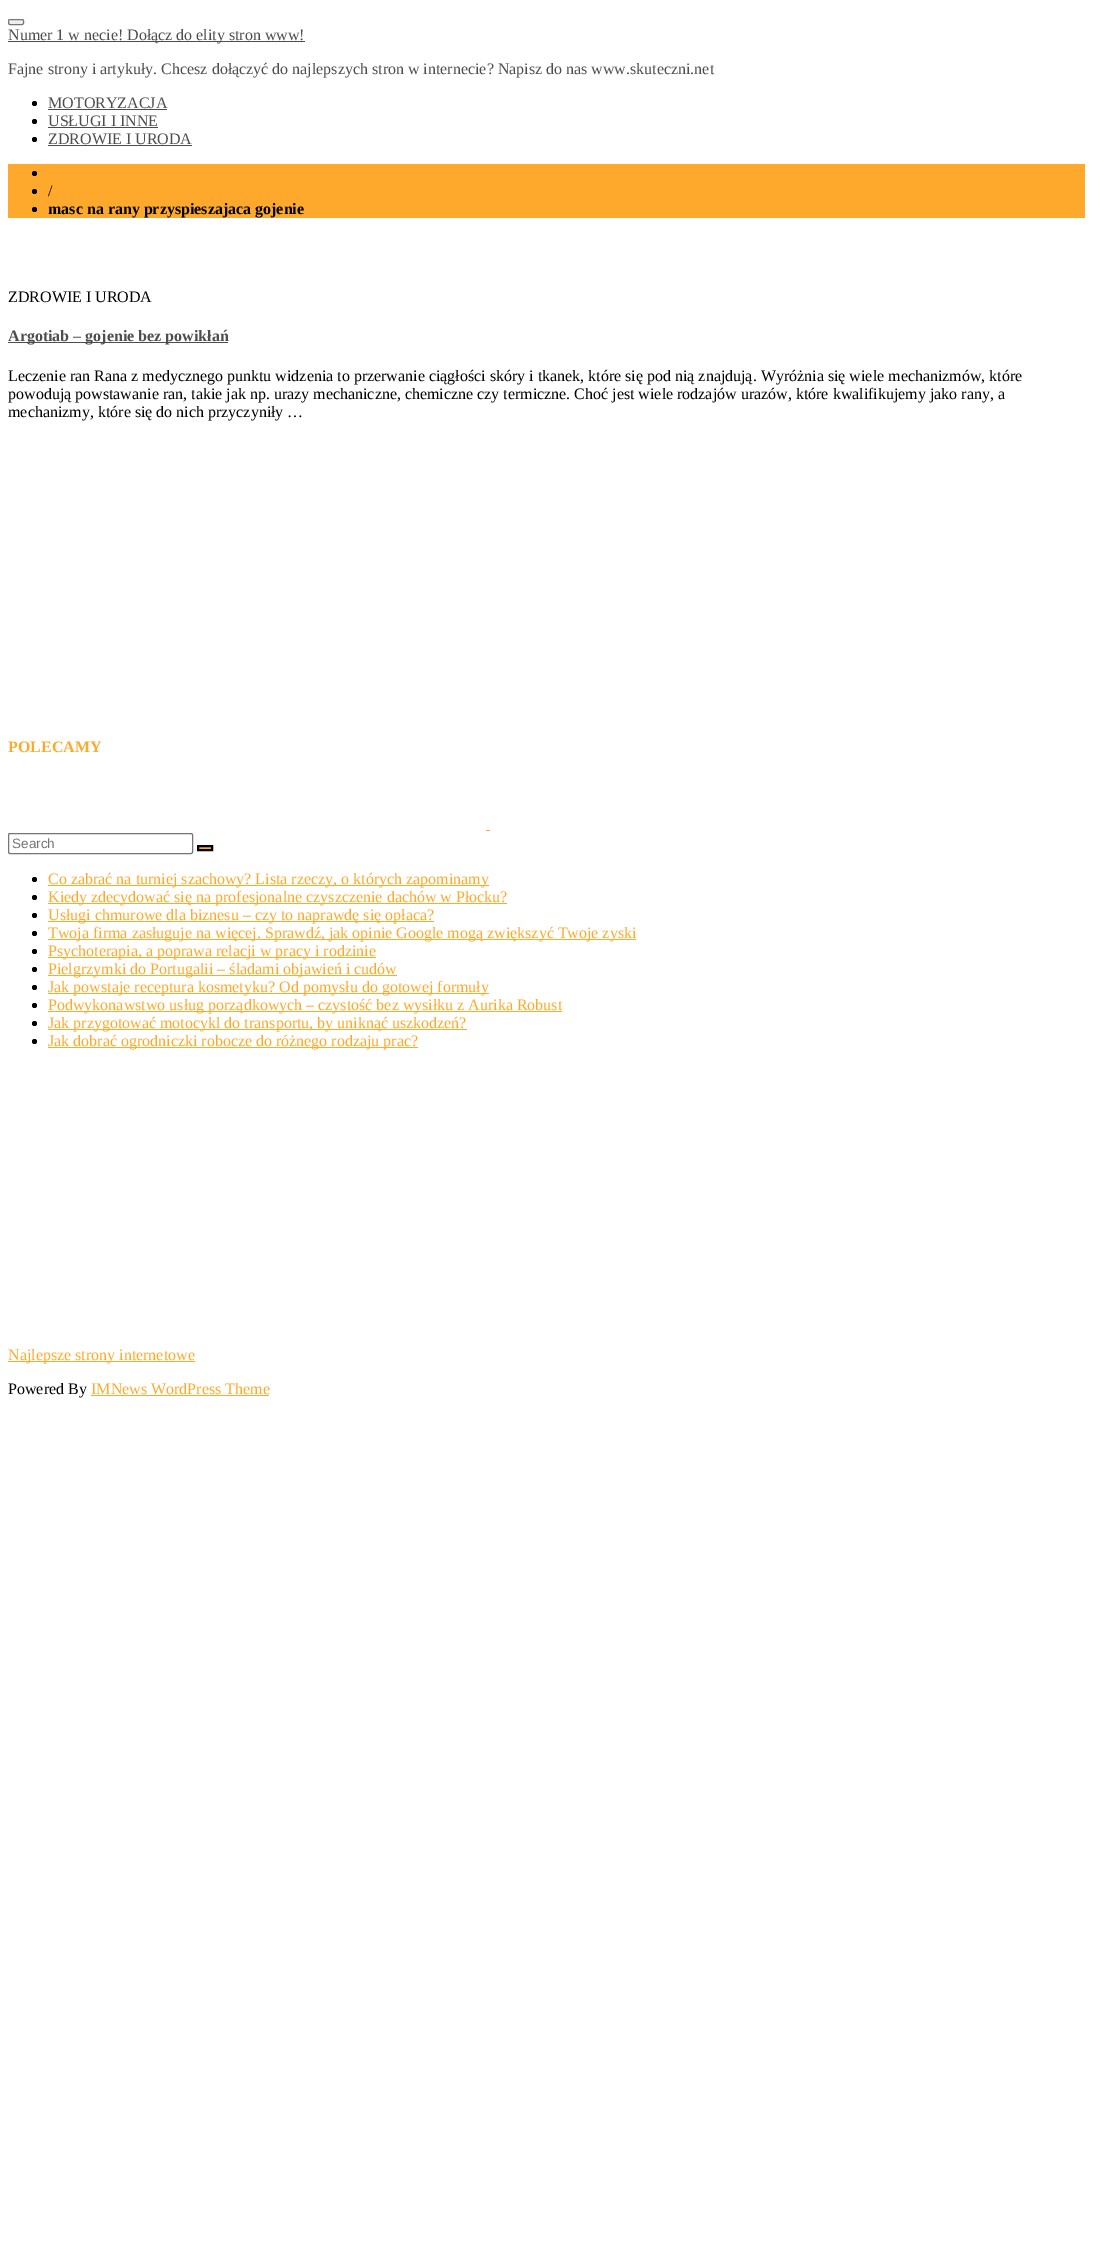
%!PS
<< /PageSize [1093 2250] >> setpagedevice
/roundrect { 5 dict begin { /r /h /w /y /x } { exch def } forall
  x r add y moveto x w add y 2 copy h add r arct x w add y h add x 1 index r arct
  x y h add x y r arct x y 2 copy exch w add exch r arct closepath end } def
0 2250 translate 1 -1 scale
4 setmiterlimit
1 setgray
0 0 1093 2250 rectfill
0.937 setgray
8.5 19.5 15 5 1.5 roundrect gsave fill grestore
0.463 setgray
stroke
0.302 setgray
8 41 297 1 rectfill
/LiberationSerif-Regular [16 0 0 -16 0 0] selectfont
8 40 moveto (Numer 1 w necie! Dołącz do elity stron www!) show
8 74 moveto (Fajne strony i artykuły. Chcesz dołączyć do najlepszych stron w internecie? Napisz do nas www.skuteczni.net) show
0 setgray
newpath 34.5 103.5 2.5 0 360 arc closepath fill
0.302 setgray
48 108 moveto (MOTORYZACJA) show
48 109 119 1 rectfill
0 setgray
newpath 34.5 121.5 2.5 0 360 arc closepath fill
0.302 setgray
48 126 moveto (USŁUGI I INNE) show
48 127 110 1 rectfill
0 setgray
newpath 34.5 139.5 2.5 0 360 arc closepath fill
0.302 setgray
48 144 moveto (ZDROWIE I URODA) show
48 145 144 1 rectfill
1 0.663 0.173 setrgbcolor
8 164 1077 54 rectfill
0 setgray
newpath 34.5 173.5 2.5 0 360 arc closepath fill
newpath 34.5 191.5 2.5 0 360 arc closepath fill
48 196 moveto (/) show
newpath 34.5 209.5 2.5 0 360 arc closepath fill
/LiberationSerif-Bold [16 0 0 -16 0 0] selectfont
48 214 moveto (masc na rany przyspieszajaca gojenie) show
/LiberationSerif-Regular [16 0 0 -16 0 0] selectfont
8 302 moveto (ZDROWIE I URODA) show
0.302 setgray
8 342 220 1 rectfill
/LiberationSerif-Bold [16 0 0 -16 0 0] selectfont
8 341 moveto (Argotiab – gojenie bez powikłań) show
/LiberationSerif-Regular [16 0 0 -16 0 0] selectfont
0 setgray
8 381 moveto (Leczenie ran Rana z medycznego punktu widzenia to przerwanie ciągłości skóry i tkanek, które się pod nią znajdują. Wyróżnia się wiele mechanizmów, które) show
8 399 moveto (powodują powstawanie ran, takie jak np. urazy mechaniczne, chemiczne czy termiczne. Choć jest wiele rodzajów urazów, które kwalifikujemy jako rany, a) show
8 417 moveto (mechanizmy, które się do nich przyczyniły …) show
/LiberationSerif-Bold [16 0 0 -16 0 0] selectfont
1 0.663 0.173 setrgbcolor
8 752 moveto (POLECAMY) show
486 830 4 1 rectfill
0.463 setgray
8.5 833.5 184 20 1.5 roundrect stroke
/LiberationSans-Regular [13.5 0 0 -13.5 0 0] selectfont
0.459 setgray
12 848 moveto (Search) show
1 0.663 0.173 setrgbcolor
newpath 198 846 moveto 212 846 lineto 212 850 lineto 198 850 lineto closepath gsave fill grestore
0 setgray
2 setlinewidth
stroke
newpath 34.5 879.5 2.5 0 360 arc closepath fill
1 0.663 0.173 setrgbcolor
48 885 441 1 rectfill
/LiberationSerif-Regular [16 0 0 -16 0 0] selectfont
48 884 moveto (Co zabrać na turniej szachowy? Lista rzeczy, o których zapominamy) show
0 setgray
newpath 34.5 897.5 2.5 0 360 arc closepath fill
1 0.663 0.173 setrgbcolor
48 903 459 1 rectfill
48 902 moveto (Kiedy zdecydować się na profesjonalne czyszczenie dachów w Płocku?) show
0 setgray
newpath 34.5 915.5 2.5 0 360 arc closepath fill
1 0.663 0.173 setrgbcolor
48 921 386 1 rectfill
48 920 moveto (Usługi chmurowe dla biznesu – czy to naprawdę się opłaca?) show
0 setgray
newpath 34.5 933.5 2.5 0 360 arc closepath fill
1 0.663 0.173 setrgbcolor
48 939 588 1 rectfill
48 938 moveto (Twoja firma zasługuje na więcej. Sprawdź, jak opinie Google mogą zwiększyć Twoje zyski) show
0 setgray
newpath 34.5 951.5 2.5 0 360 arc closepath fill
1 0.663 0.173 setrgbcolor
48 957 328 1 rectfill
48 956 moveto (Psychoterapia, a poprawa relacji w pracy i rodzinie) show
0 setgray
newpath 34.5 969.5 2.5 0 360 arc closepath fill
1 0.663 0.173 setrgbcolor
48 975 349 1 rectfill
48 974 moveto (Pielgrzymki do Portugalii – śladami objawień i cudów) show
0 setgray
newpath 34.5 987.5 2.5 0 360 arc closepath fill
1 0.663 0.173 setrgbcolor
48 993 441 1 rectfill
48 992 moveto (Jak powstaje receptura kosmetyku? Od pomysłu do gotowej formuły) show
0 setgray
newpath 34.5 1005.5 2.5 0 360 arc closepath fill
1 0.663 0.173 setrgbcolor
48 1011 514 1 rectfill
48 1010 moveto (Podwykonawstwo usług porządkowych – czystość bez wysiłku z Aurika Robust) show
0 setgray
newpath 34.5 1023.5 2.5 0 360 arc closepath fill
1 0.663 0.173 setrgbcolor
48 1029 419 1 rectfill
48 1028 moveto (Jak przygotować motocykl do transportu, by uniknąć uszkodzeń?) show
0 setgray
newpath 34.5 1041.5 2.5 0 360 arc closepath fill
1 0.663 0.173 setrgbcolor
48 1047 370 1 rectfill
48 1046 moveto (Jak dobrać ogrodniczki robocze do różnego rodzaju prac?) show
8 1361 187 1 rectfill
8 1360 moveto (Najlepsze strony internetowe) show
0 setgray
8 1394 moveto (Powered By) show
1 0.663 0.173 setrgbcolor
91 1394 moveto (IMNews WordPress Theme) show
91 1395 178 1 rectfill
showpage
